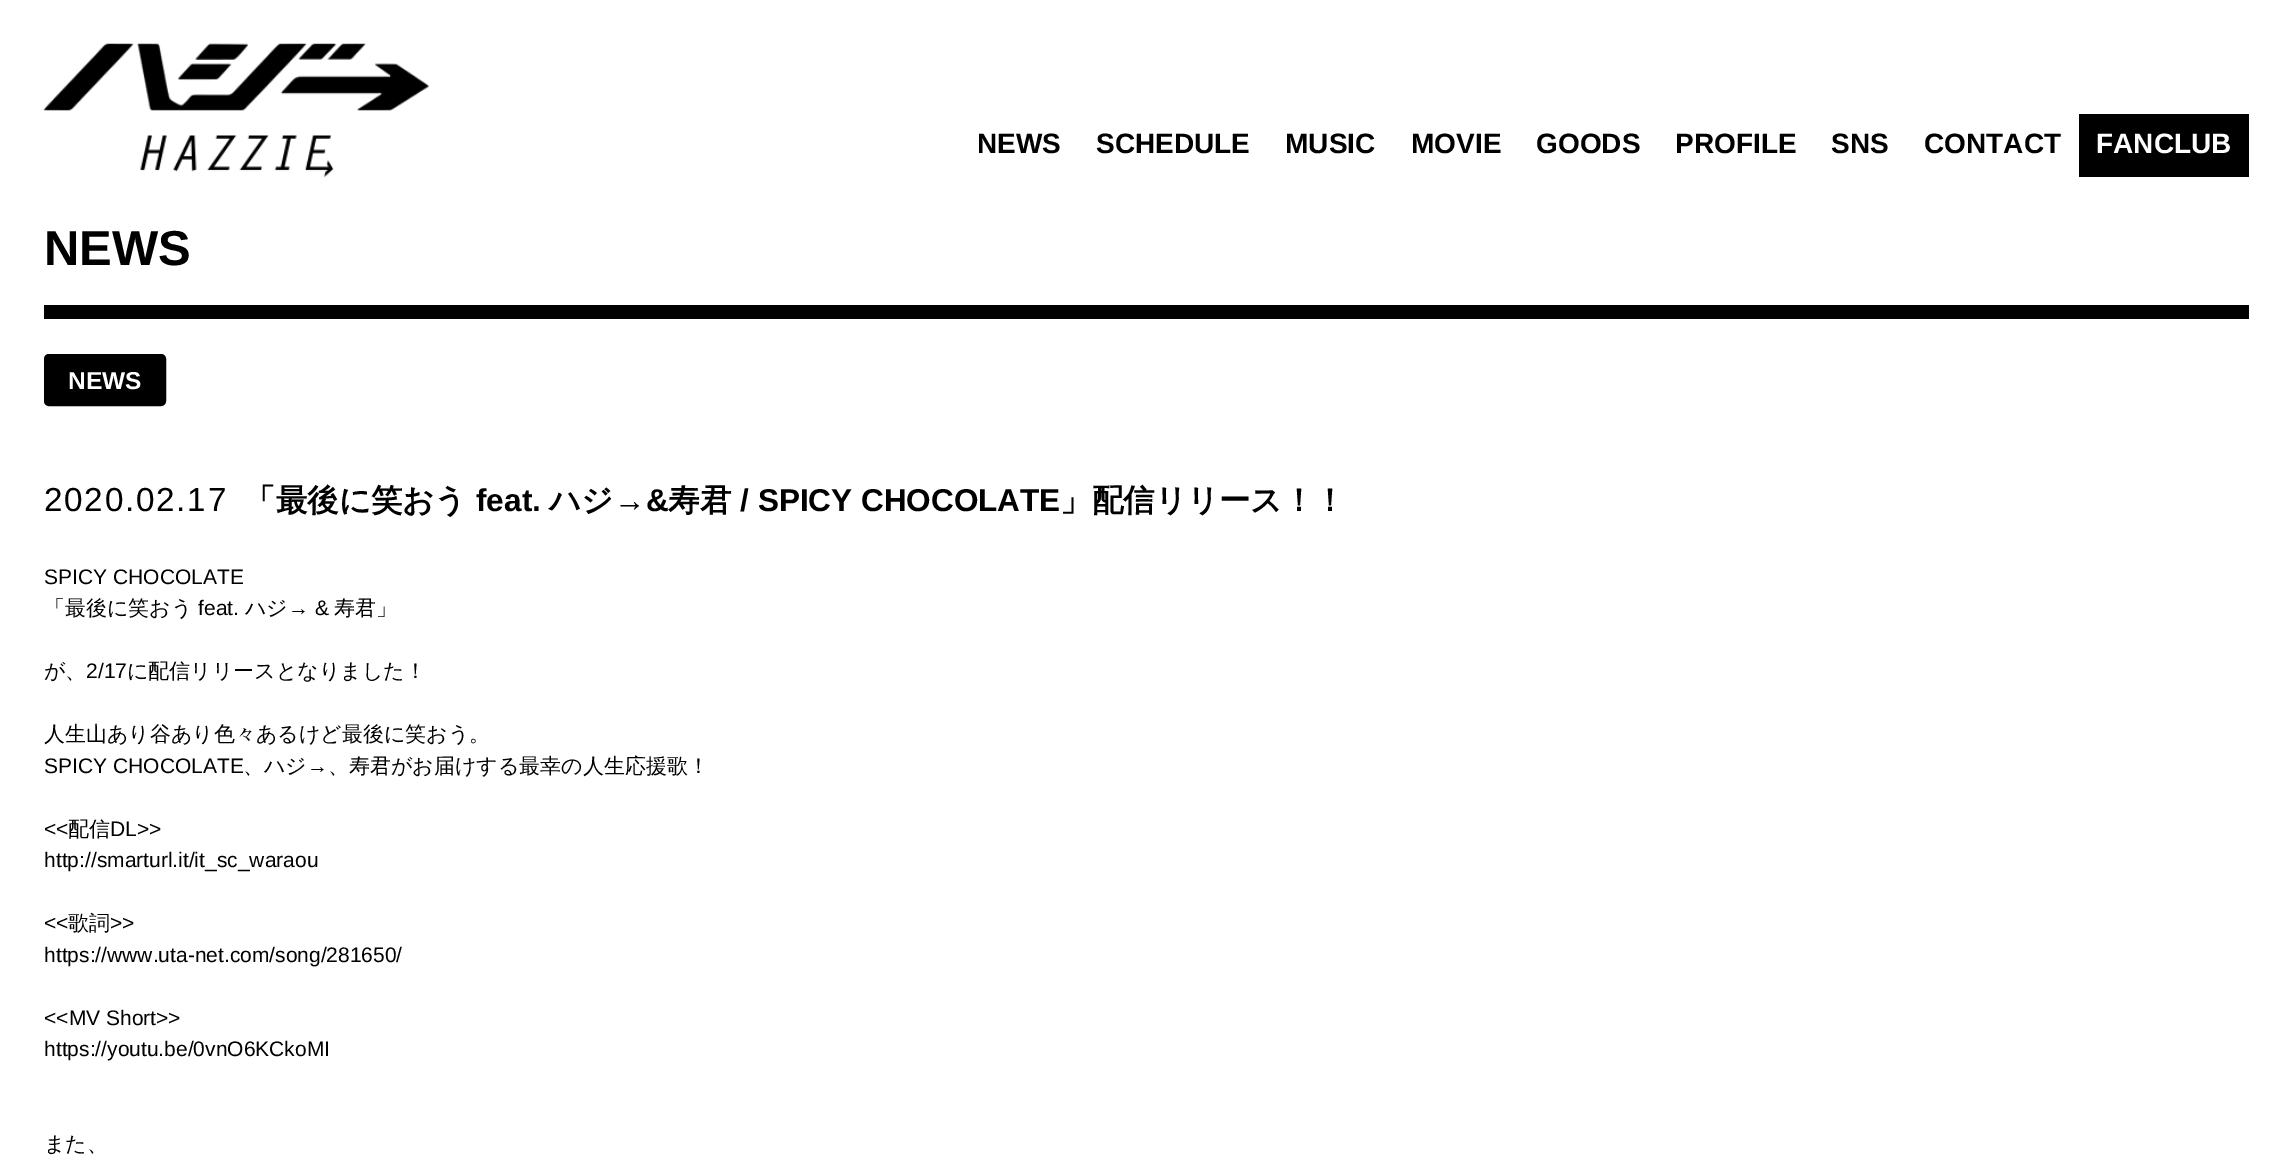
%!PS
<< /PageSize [2291 1170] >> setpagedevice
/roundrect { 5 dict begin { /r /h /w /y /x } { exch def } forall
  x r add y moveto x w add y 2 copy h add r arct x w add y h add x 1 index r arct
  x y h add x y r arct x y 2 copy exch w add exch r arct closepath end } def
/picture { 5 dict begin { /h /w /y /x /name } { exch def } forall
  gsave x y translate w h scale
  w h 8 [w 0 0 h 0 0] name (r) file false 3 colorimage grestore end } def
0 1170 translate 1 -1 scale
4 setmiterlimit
1 setgray
0 0 2291 1170 rectfill
(img1.rgb) 43 43 386 134 picture
/LiberationSans-Bold [28 0 0 -28 0 0] selectfont
0 setgray
977 153 moveto (NEWS) show
1096 153 moveto (SCHEDULE) show
1285 153 moveto (MUSIC) show
1411 153 moveto (MOVIE) show
1536 153 moveto (GOODS) show
1675 153 moveto (PROFILE) show
1831 153 moveto (SNS) show
1924 153 moveto (CONTACT) show
2079 114 170 63 rectfill
1 setgray
2096 153 moveto (FANCLUB) show
0 setgray
44 305 2205 14 rectfill
/LiberationSans-Bold [49 0 0 -49 0 0] selectfont
44 265 moveto (NEWS) show
46.5 356.5 117 47 2.5 roundrect gsave fill grestore
5 setlinewidth
stroke
/LiberationSans-Bold [24.5 0 0 -24.5 0 0] selectfont
1 setgray
68 389 moveto (NEWS) show
/LiberationSans-Regular [33.25 0 0 -33.25 0 0] selectfont
0 setgray
44 511 moveto 1.75 0 (2020.02.17) ashow
/WenQuanYiZenHei-Bold [31.5 0 0 -31.5 0 0] selectfont
244 511 moveto (「最後に笑おう) show
/LiberationSans-Bold [31.5 0 0 -31.5 0 0] selectfont
476 511 moveto (feat.) show
/WenQuanYiZenHei-Bold [31.5 0 0 -31.5 0 0] selectfont
549 511 moveto (ハジ) show
/LiberationSans-Bold [31.5 0 0 -31.5 0 0] selectfont
614 511 moveto (→&) show
/WenQuanYiZenHei-Bold [31.5 0 0 -31.5 0 0] selectfont
668 511 moveto (寿君) show
/LiberationSans-Bold [31.5 0 0 -31.5 0 0] selectfont
740 511 moveto (/ SPICY CHOCOLATE) show
/WenQuanYiZenHei-Bold [31.5 0 0 -31.5 0 0] selectfont
1060 511 moveto (」配信リリース！！) show
/LiberationSans-Regular [21 0 0 -21 0 0] selectfont
44 584 moveto (SPICY CHOCOLATE) show
/WenQuanYiZenHei-Medium [21 0 0 -21 0 0] selectfont
44 615 moveto (「最後に笑おう) show
/LiberationSans-Regular [21 0 0 -21 0 0] selectfont
198 615 moveto (feat.) show
/WenQuanYiZenHei-Medium [21 0 0 -21 0 0] selectfont
245 615 moveto (ハジ) show
/LiberationSans-Regular [21 0 0 -21 0 0] selectfont
288 615 moveto (→ &) show
/WenQuanYiZenHei-Medium [21 0 0 -21 0 0] selectfont
334 615 moveto (寿君」) show
44 678 moveto (が、) show
/LiberationSans-Regular [21 0 0 -21 0 0] selectfont
86 678 moveto (2/17) show
/WenQuanYiZenHei-Medium [21 0 0 -21 0 0] selectfont
127 678 moveto (に配信リリースとなりました！) show
44 741 moveto (人生山あり谷あり色々あるけど最後に笑おう。) show
/LiberationSans-Regular [21 0 0 -21 0 0] selectfont
44 773 moveto (SPICY CHOCOLATE) show
/WenQuanYiZenHei-Medium [21 0 0 -21 0 0] selectfont
243 773 moveto (、ハジ) show
/LiberationSans-Regular [21 0 0 -21 0 0] selectfont
307 773 moveto (→) show
/WenQuanYiZenHei-Medium [21 0 0 -21 0 0] selectfont
328 773 moveto (、寿君がお届けする最幸の人生応援歌！) show
/LiberationSans-Regular [21 0 0 -21 0 0] selectfont
44 836 moveto (<<) show
/WenQuanYiZenHei-Medium [21 0 0 -21 0 0] selectfont
68 836 moveto (配信) show
/LiberationSans-Regular [21 0 0 -21 0 0] selectfont
110 836 moveto (DL>>) show
44 867 moveto (http://smarturl.it/it_sc_waraou) show
44 930 moveto (<<) show
/WenQuanYiZenHei-Medium [21 0 0 -21 0 0] selectfont
68 930 moveto (歌詞) show
/LiberationSans-Regular [21 0 0 -21 0 0] selectfont
110 930 moveto (>>) show
44 962 moveto (https://www.uta-net.com/song/281650/) show
44 1025 moveto (<<MV Short>>) show
44 1056 moveto (https://youtu.be/0vnO6KCkoMI) show
/WenQuanYiZenHei-Medium [21 0 0 -21 0 0] selectfont
44 1151 moveto (また、) show
showpage
